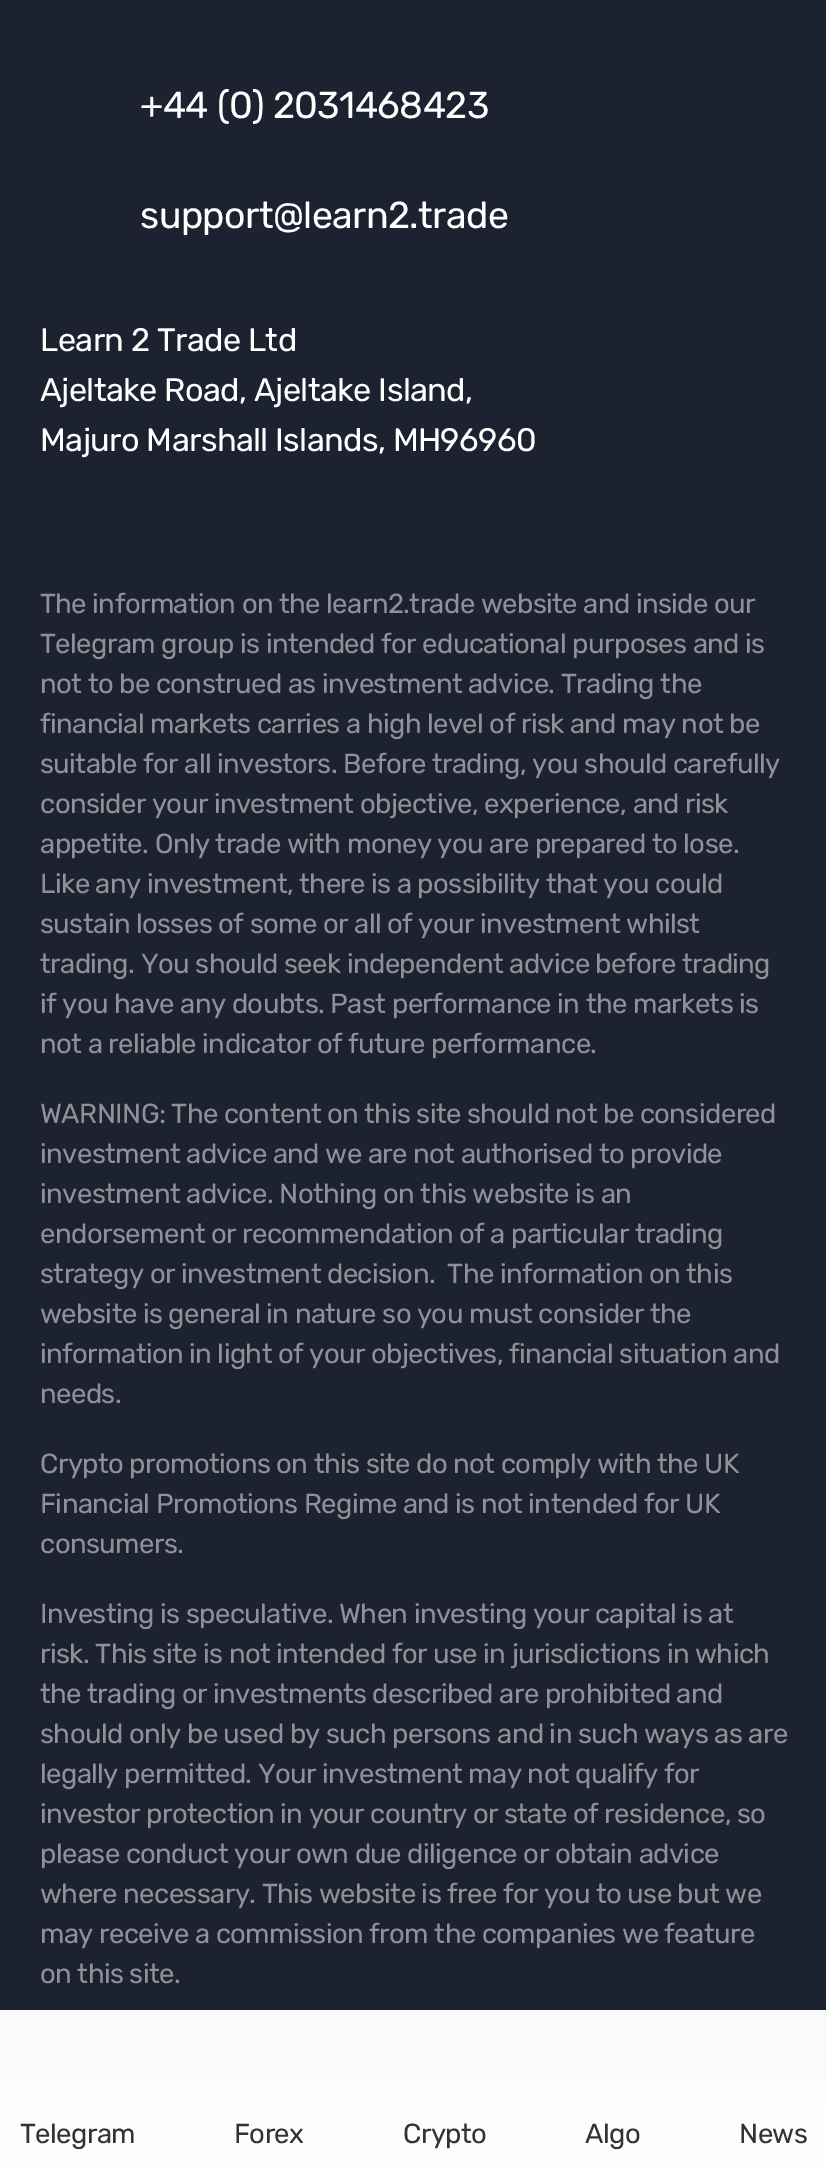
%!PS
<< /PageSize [826 2174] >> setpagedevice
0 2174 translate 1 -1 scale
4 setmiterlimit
0.114 0.133 0.188 setrgbcolor
0 0 826 2174 rectfill
/Rubik-Regular [37.5 0 0 -37.5 0 0] selectfont
1 setgray
140 118 moveto -0.6 0 (+44 \(0\) 2031468423) ashow
140 228 moveto -0.6 0 (support@learn2.trade) ashow
/Rubik-Regular [32.5 0 0 -32.5 0 0] selectfont
40 351 moveto -0.6 0 (Learn 2 Trade Ltd) ashow
40 401 moveto -0.6 0 (Ajeltake Road, Ajeltake Island,) ashow
40 451 moveto -0.6 0 (Majuro Marshall Islands, MH96960) ashow
/Rubik-Regular [27.5 0 0 -27.5 0 0] selectfont
0.557 0.569 0.596 setrgbcolor
40 613 moveto -0.6 0 (The information on the learn2.trade website and inside our) ashow
40 653 moveto -0.6 0 (Telegram group is intended for educational purposes and is) ashow
40 693 moveto -0.6 0 (not to be construed as investment advice. Trading the) ashow
40 733 moveto -0.6 0 (financial markets carries a high level of risk and may not be) ashow
40 773 moveto -0.6 0 (suitable for all investors. Before trading, you should carefully) ashow
40 813 moveto -0.6 0 (consider your investment objective, experience, and risk) ashow
40 853 moveto -0.6 0 (appetite. Only trade with money you are prepared to lose.) ashow
40 893 moveto -0.6 0 (Like any investment, there is a possibility that you could) ashow
40 933 moveto -0.6 0 (sustain losses of some or all of your investment whilst) ashow
40 973 moveto -0.6 0 (trading. You should seek independent advice before trading) ashow
40 1013 moveto -0.6 0 (if you have any doubts. Past performance in the markets is) ashow
40 1053 moveto -0.6 0 (not a reliable indicator of future performance.) ashow
40 1123 moveto -0.6 0 (WARNING: The content on this site should not be considered) ashow
40 1163 moveto -0.6 0 (investment advice and we are not authorised to provide) ashow
40 1203 moveto -0.6 0 (investment advice. Nothing on this website is an) ashow
40 1243 moveto -0.6 0 (endorsement or recommendation of a particular trading) ashow
40 1283 moveto -0.6 0 (strategy or investment decision.  The information on this) ashow
40 1323 moveto -0.6 0 (website is general in nature so you must consider the) ashow
40 1363 moveto -0.6 0 (information in light of your objectives, financial situation and) ashow
40 1403 moveto -0.6 0 (needs.) ashow
40 1473 moveto -0.6 0 (Crypto promotions on this site do not comply with the UK) ashow
40 1513 moveto -0.6 0 (Financial Promotions Regime and is not intended for UK) ashow
40 1553 moveto -0.6 0 (consumers.) ashow
40 1623 moveto -0.6 0 (Investing is speculative. When investing your capital is at) ashow
40 1663 moveto -0.6 0 (risk. This site is not intended for use in jurisdictions in which) ashow
40 1703 moveto -0.6 0 (the trading or investments described are prohibited and) ashow
40 1743 moveto -0.6 0 (should only be used by such persons and in such ways as are) ashow
40 1783 moveto -0.6 0 (legally permitted. Your investment may not qualify for) ashow
40 1823 moveto -0.6 0 (investor protection in your country or state of residence, so) ashow
40 1863 moveto -0.6 0 (please conduct your own due diligence or obtain advice) ashow
40 1903 moveto -0.6 0 (where necessary. This website is free for you to use but we) ashow
40 1943 moveto -0.6 0 (may receive a commission from the companies we feature) ashow
40 1983 moveto -0.6 0 (on this site.) ashow
gsave newpath 0 2010 moveto 826 2010 lineto 826 2174 lineto 0 2174 lineto closepath clip newpath
<< /ShadingType 2 /ColorSpace /DeviceRGB /Coords [414 2010 414 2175] /Extend [true true] /Function << /FunctionType 2 /Domain [0 1] /C0 [0.98 0.98 0.98] /C1 [1 1 1] /N 1 >> >> shfill grestore
0.2 setgray
20 2143 moveto -0.6 0 (Telegram) ashow
234 2143 moveto -0.6 0 (Forex) ashow
403 2143 moveto -0.6 0 (Crypto) ashow
585 2143 moveto -0.6 0 (Algo) ashow
739 2143 moveto -0.6 0 (News) ashow
showpage
